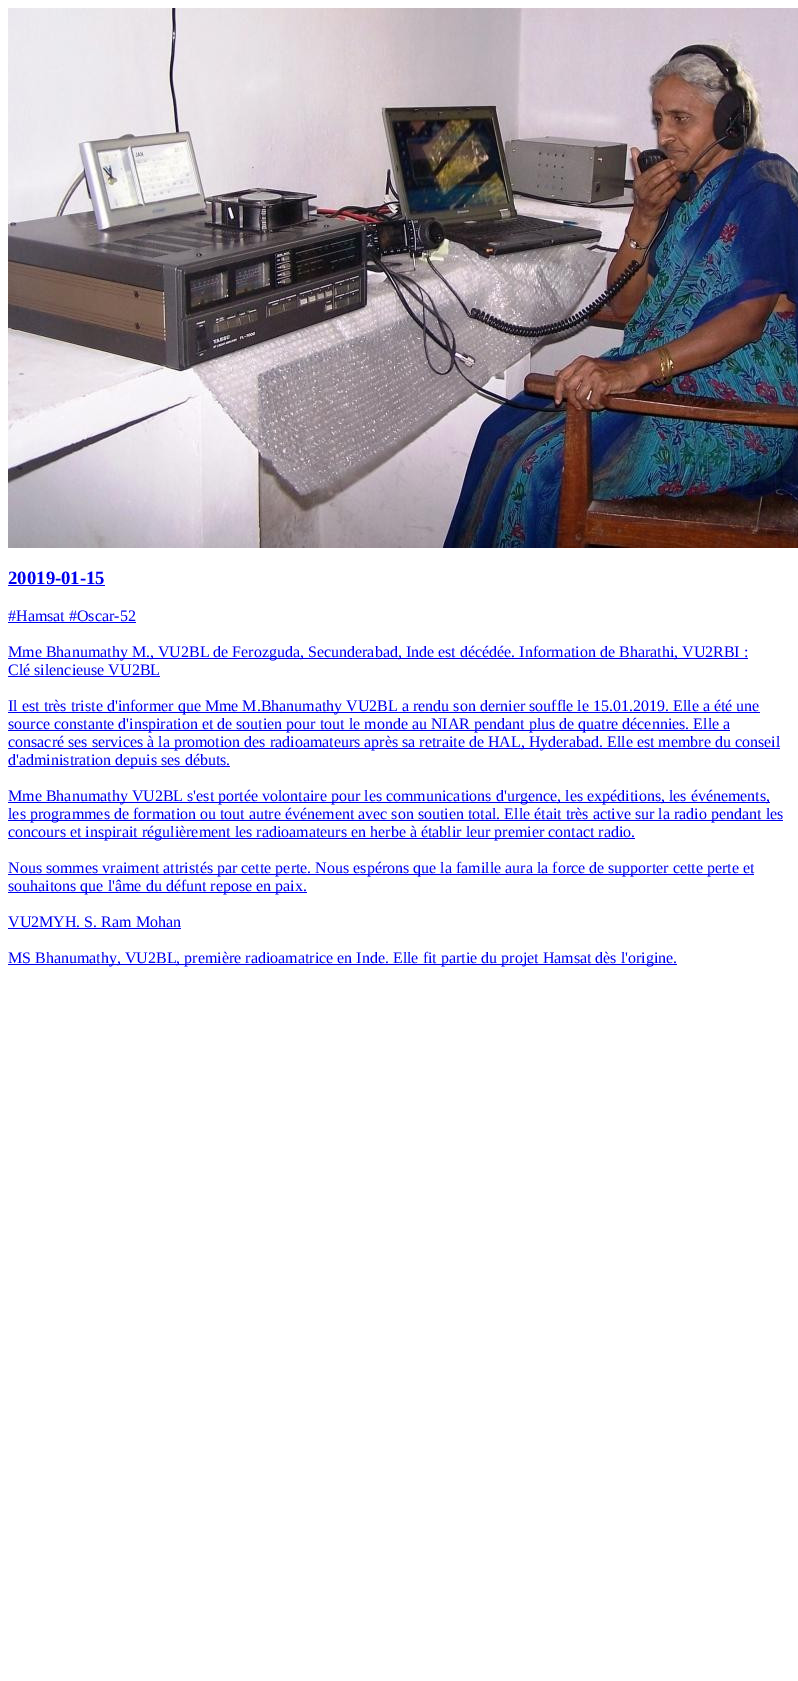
%!PS
<< /PageSize [798 1681] >> setpagedevice
/picture { 5 dict begin { /h /w /y /x /name } { exch def } forall
  gsave x y translate w h scale
  w h 8 [w 0 0 h 0 0] name (r) file false 3 colorimage grestore end } def
0 1681 translate 1 -1 scale
4 setmiterlimit
1 setgray
0 0 798 1681 rectfill
(img1.rgb) 8 8 790 540 picture
/LiberationSerif-Bold [18.75 0 0 -18.75 0 0] selectfont
0 0 0.933 setrgbcolor
8 584 moveto (20019-01-15) show
8 585 97 1 rectfill
/LiberationSerif-Regular [16 0 0 -16 0 0] selectfont
8 621 moveto (#Hamsat #Oscar-52) show
8 622 128 1 rectfill
8 658 740 1 rectfill
8 657 moveto (Mme Bhanumathy M., VU2BL de Ferozguda, Secunderabad, Inde est décédée. Information de Bharathi, VU2RBI :) show
8 675 moveto (Clé silencieuse VU2BL) show
8 676 152 1 rectfill
8 712 752 1 rectfill
8 711 moveto (Il est très triste d'informer que Mme M.Bhanumathy VU2BL a rendu son dernier souffle le 15.01.2019. Elle a été une) show
8 730 722 1 rectfill
8 729 moveto (source constante d'inspiration et de soutien pour tout le monde au NIAR pendant plus de quatre décennies. Elle a) show
8 748 772 1 rectfill
8 747 moveto (consacré ses services à la promotion des radioamateurs après sa retraite de HAL, Hyderabad. Elle est membre du conseil) show
8 766 222 1 rectfill
8 765 moveto (d'administration depuis ses débuts.) show
8 802 762 1 rectfill
8 801 moveto (Mme Bhanumathy VU2BL s'est portée volontaire pour les communications d'urgence, les expéditions, les événements,) show
8 820 775 1 rectfill
8 819 moveto (les programmes de formation ou tout autre événement avec son soutien total. Elle était très active sur la radio pendant les) show
8 838 627 1 rectfill
8 837 moveto (concours et inspirait régulièrement les radioamateurs en herbe à établir leur premier contact radio.) show
8 874 746 1 rectfill
8 873 moveto (Nous sommes vraiment attristés par cette perte. Nous espérons que la famille aura la force de supporter cette perte et) show
8 892 299 1 rectfill
8 891 moveto (souhaitons que l'âme du défunt repose en paix.) show
8 927 moveto (VU2MYH. S. Ram Mohan) show
8 928 173 1 rectfill
8 964 669 1 rectfill
8 963 moveto (MS Bhanumathy, VU2BL, première radioamatrice en Inde. Elle fit partie du projet Hamsat dès l'origine.) show
showpage
